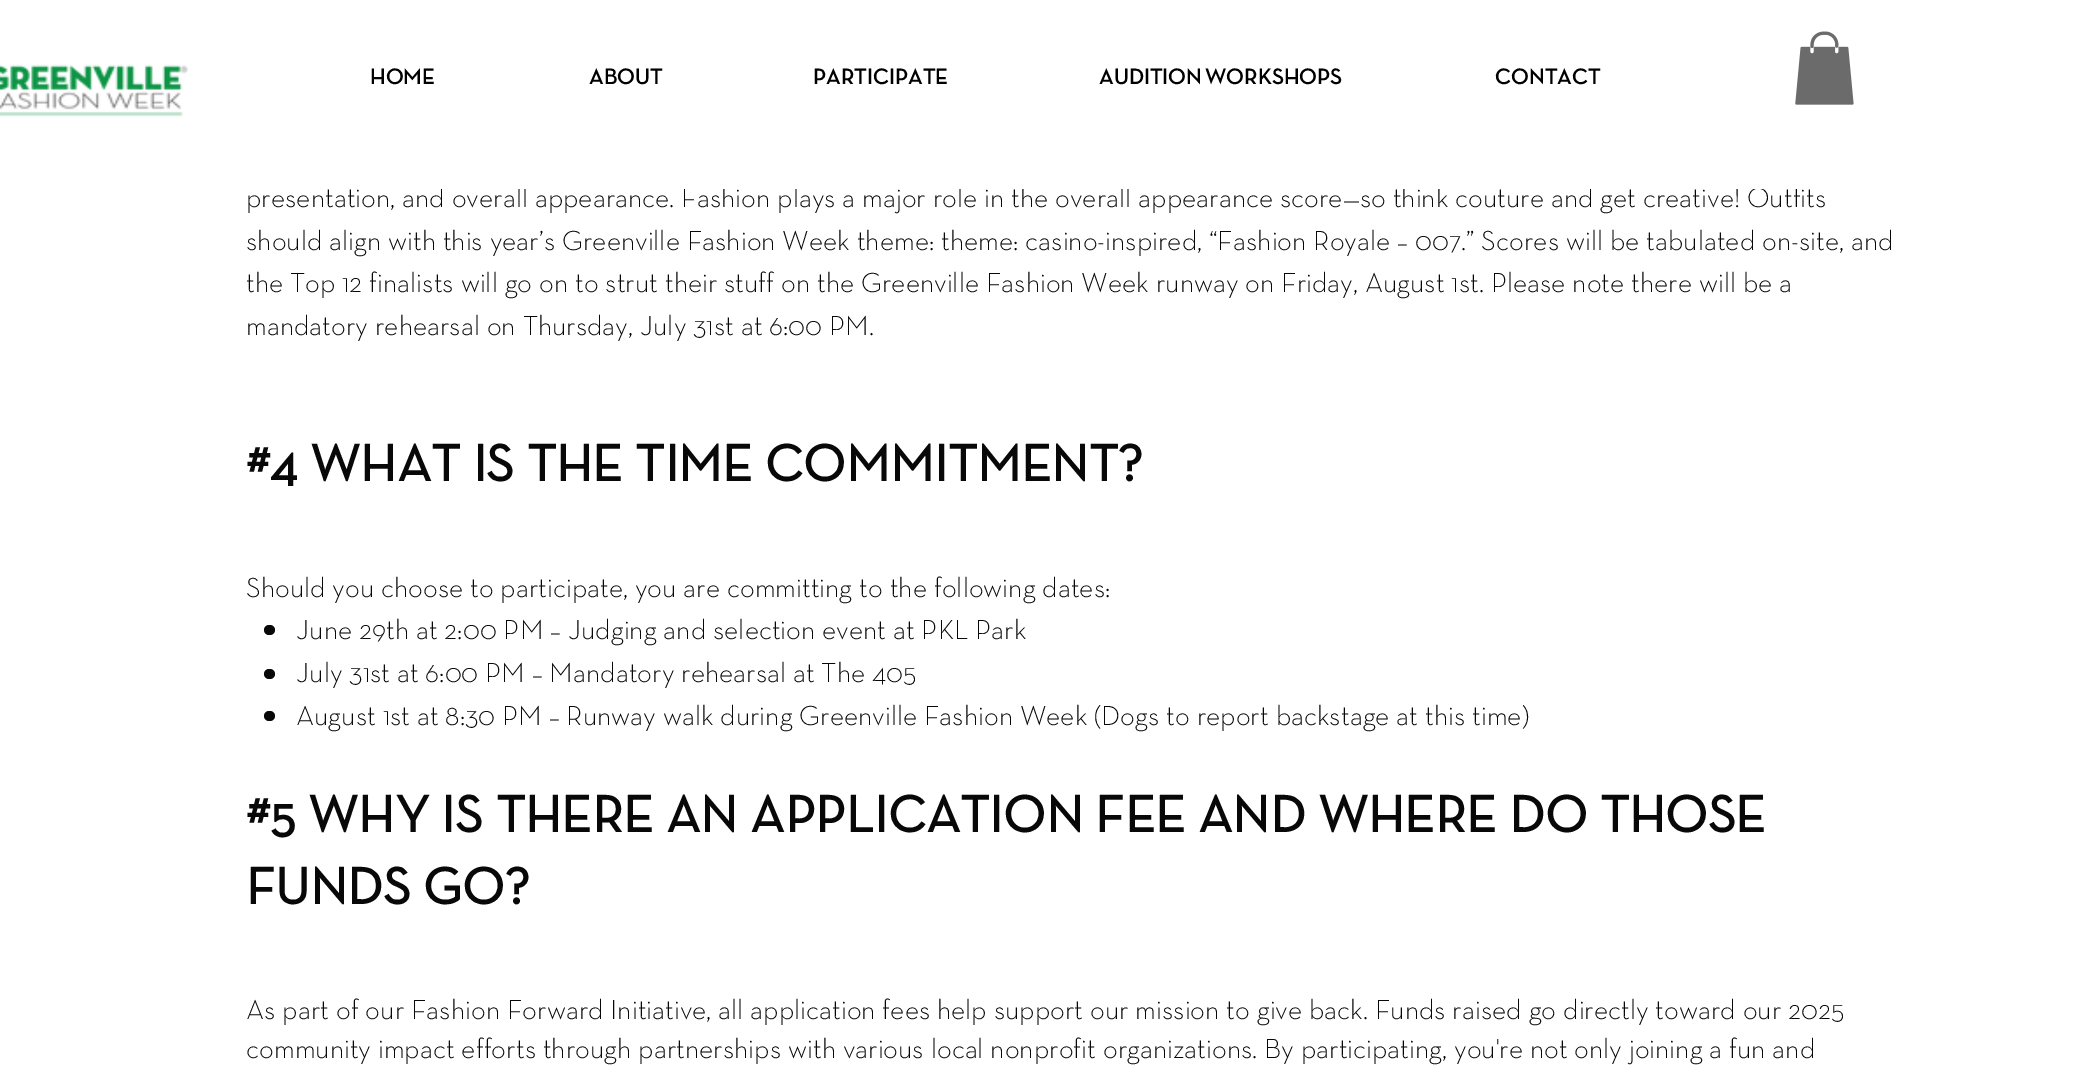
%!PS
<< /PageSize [2097 1077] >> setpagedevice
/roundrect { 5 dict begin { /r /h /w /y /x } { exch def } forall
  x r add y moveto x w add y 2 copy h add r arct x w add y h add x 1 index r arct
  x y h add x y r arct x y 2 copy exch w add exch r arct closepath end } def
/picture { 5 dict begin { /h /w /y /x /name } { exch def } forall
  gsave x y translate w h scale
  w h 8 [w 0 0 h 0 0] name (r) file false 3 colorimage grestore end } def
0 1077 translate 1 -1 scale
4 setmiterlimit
1 setgray
0 0 2097 1077 rectfill
(img1.rgb) 0 64 189 53 picture
/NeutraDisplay-Bold [22.75 0 0 -22.75 0 0] selectfont
0 setgray
370 84 moveto (HOME) show
589 84 moveto (ABOUT) show
813 84 moveto (PARTICIPATE) show
1099 84 moveto -1 0 32 (AUDITION WORKSHOPS) widthshow
1495 84 moveto (CONTACT) show
(img2.rgb) 1795 31 59 74 picture
/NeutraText-Light [28 0 0 -28 0 0] selectfont
0.031 setgray
246 207 moveto (presentation, and overall appearance. Fashion plays a major role in the overall appearance score—so think couture and get creative! Outfits) show
1 setgray
441 186 1360 3 rectfill
0.031 setgray
246 250 moveto (should align with this year’s Greenville Fashion Week theme: theme: casino-inspired, “Fashion Royale – 007.” Scores will be tabulated on-site, and) show
246 292 moveto (the Top 12 finalists will go on to strut their stuff on the Greenville Fashion Week runway on Friday, August 1st. Please note there will be a) show
246 335 moveto (mandatory rehearsal on Thursday, July 31st at 6:00 PM.) show
/NeutraText-Bold [52.5 0 0 -52.5 0 0] selectfont
246 481 moveto (#4 WHAT IS THE TIME COMMITMENT?) show
/NeutraText-Light [28 0 0 -28 0 0] selectfont
246 597 moveto (Should you choose to participate, you are committing to the following dates:) show
264 625 11 10 5 roundrect fill
296 639 moveto (June 29th at 2:00 PM – Judging and selection event at PKL Park) show
264 669 11 10 5 roundrect fill
296 682 moveto (July 31st at 6:00 PM – Mandatory rehearsal at The 405) show
264 711 11 10 5 roundrect fill
296 725 moveto (August 1st at 8:30 PM – Runway walk during Greenville Fashion Week \(Dogs to report backstage at this time\)) show
/NeutraText-Bold [52.5 0 0 -52.5 0 0] selectfont
246 832 moveto (#5 WHY IS THERE AN APPLICATION FEE AND WHERE DO THOSE) show
246 904 moveto (FUNDS GO?) show
/NeutraText-Light [28 0 0 -28 0 0] selectfont
246 1019 moveto (As part of our Fashion Forward Initiative, all application fees help support our mission to give back. Funds raised go directly toward our 2025) show
246 1058 moveto (community impact efforts through partnerships with various local nonprofit organizations. By participating, you're not only joining a fun and) show
showpage
